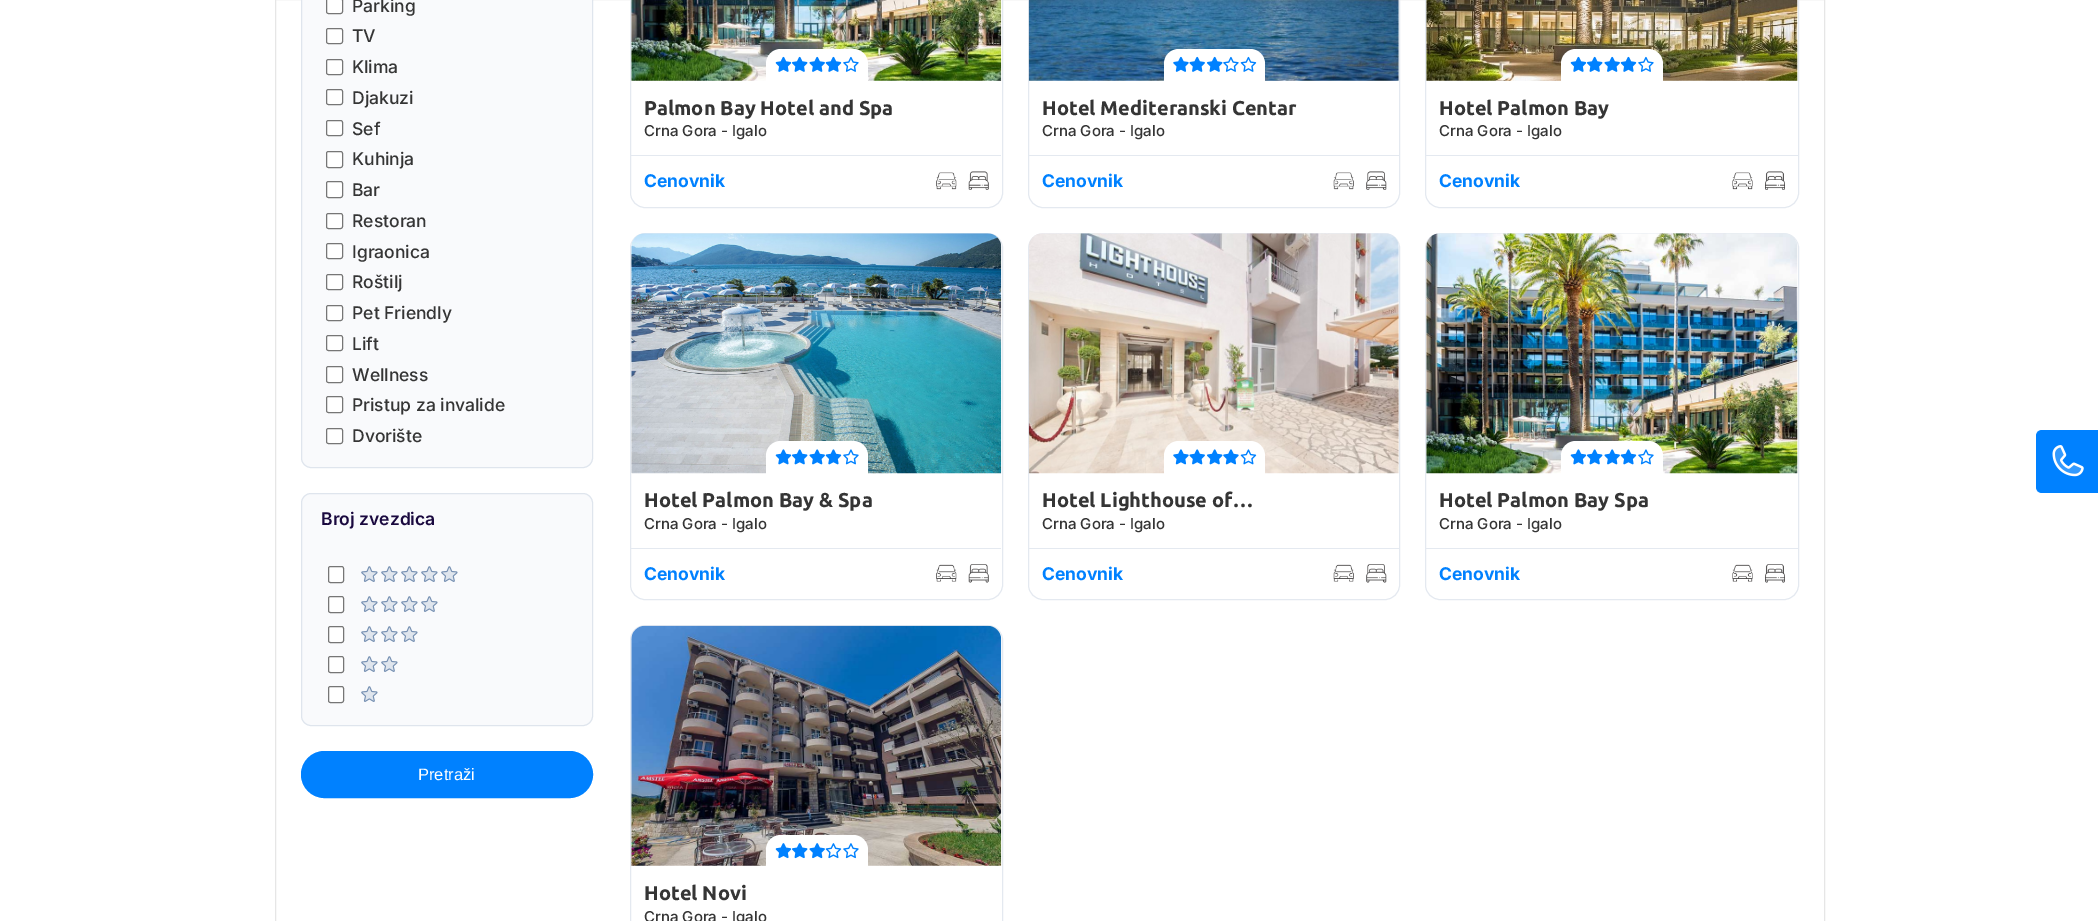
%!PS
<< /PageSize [2098 921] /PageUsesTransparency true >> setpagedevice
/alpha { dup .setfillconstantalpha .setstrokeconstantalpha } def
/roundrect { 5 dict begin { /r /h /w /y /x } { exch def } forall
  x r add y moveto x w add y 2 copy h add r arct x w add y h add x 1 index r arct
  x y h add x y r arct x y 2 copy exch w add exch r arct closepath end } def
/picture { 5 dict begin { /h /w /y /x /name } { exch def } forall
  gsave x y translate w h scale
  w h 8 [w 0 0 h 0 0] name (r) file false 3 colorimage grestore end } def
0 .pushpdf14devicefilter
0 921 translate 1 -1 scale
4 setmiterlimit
1 setgray
0 0 2098 921 rectfill
0.902 setgray
275.5 -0.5 1549 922 rectstroke
0.976 0.98 0.988 setrgbcolor
301 -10 292 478 10 roundrect fill
0.2 alpha
0.463 0.565 0.698 setrgbcolor
301.5 -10.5 291 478 9.5 roundrect stroke
1 alpha
1 setgray
326.5 -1.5 16 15 2 roundrect gsave fill grestore
0.463 setgray
stroke
/Inter-Medium [17.5 0 0 -17.5 0 0] selectfont
0.208 setgray
352 12 moveto (Parking) show
1 setgray
326.5 28.5 16 15 2 roundrect gsave fill grestore
0.463 setgray
stroke
0.208 setgray
352 42 moveto (TV) show
1 setgray
326.5 59.5 16 15 2 roundrect gsave fill grestore
0.463 setgray
stroke
0.208 setgray
352 73 moveto (Klima) show
1 setgray
326.5 89.5 16 15 2 roundrect gsave fill grestore
0.463 setgray
stroke
0.208 setgray
352 104 moveto (Djakuzi) show
1 setgray
326.5 120.5 16 15 2 roundrect gsave fill grestore
0.463 setgray
stroke
0.208 setgray
352 135 moveto (Sef) show
1 setgray
326.5 151.5 16 16 2 roundrect gsave fill grestore
0.463 setgray
stroke
0.208 setgray
352 165 moveto (Kuhinja) show
1 setgray
326.5 181.5 16 16 2 roundrect gsave fill grestore
0.463 setgray
stroke
0.208 setgray
352 196 moveto (Bar) show
1 setgray
326.5 213.5 16 15 2 roundrect gsave fill grestore
0.463 setgray
stroke
0.208 setgray
352 227 moveto (Restoran) show
1 setgray
326.5 243.5 16 15 2 roundrect gsave fill grestore
0.463 setgray
stroke
0.208 setgray
352 258 moveto (Igraonica) show
1 setgray
326.5 274.5 16 15 2 roundrect gsave fill grestore
0.463 setgray
stroke
0.208 setgray
352 288 moveto (Roštilj) show
1 setgray
326.5 305.5 16 15 2 roundrect gsave fill grestore
0.463 setgray
stroke
0.208 setgray
352 319 moveto (Pet Friendly) show
1 setgray
326.5 335.5 16 15 2 roundrect gsave fill grestore
0.463 setgray
stroke
0.208 setgray
352 350 moveto (Lift) show
1 setgray
326.5 366.5 16 16 2 roundrect gsave fill grestore
0.463 setgray
stroke
0.208 setgray
352 381 moveto (Wellness) show
1 setgray
326.5 396.5 16 16 2 roundrect gsave fill grestore
0.463 setgray
stroke
0.208 setgray
352 411 moveto (Pristup za invalide) show
1 setgray
326.5 428.5 16 15 2 roundrect gsave fill grestore
0.463 setgray
stroke
0.208 setgray
352 442 moveto (Dvorište) show
0.976 0.98 0.988 setrgbcolor
301 493 292 233 10 roundrect fill
0.2 alpha
0.463 0.565 0.698 setrgbcolor
301.5 493.5 291 232 9.5 roundrect stroke
/Inter-SemiBold [17.5 0 0 -17.5 0 0] selectfont
1 alpha
0.102 0.035 0.247 setrgbcolor
321 525 moveto (Broj zvezdica) show
1 setgray
328.5 566.5 15 16 2 roundrect gsave fill grestore
0.463 setgray
stroke
(img1.rgb) 361 566 17 16 picture
(img1.rgb) 381 566 17 16 picture
(img1.rgb) 401 566 17 16 picture
(img1.rgb) 421 566 17 16 picture
(img1.rgb) 441 566 17 16 picture
1 setgray
328.5 596.5 15 16 2 roundrect gsave fill grestore
0.463 setgray
stroke
(img1.rgb) 361 596 17 16 picture
(img1.rgb) 381 596 17 16 picture
(img1.rgb) 401 596 17 16 picture
(img1.rgb) 421 596 17 16 picture
1 setgray
328.5 626.5 15 16 2 roundrect gsave fill grestore
0.463 setgray
stroke
(img1.rgb) 361 626 17 16 picture
(img1.rgb) 381 626 17 16 picture
(img1.rgb) 401 626 17 16 picture
1 setgray
328.5 656.5 15 16 2 roundrect gsave fill grestore
0.463 setgray
stroke
(img1.rgb) 361 656 17 16 picture
(img1.rgb) 381 656 17 16 picture
1 setgray
328.5 686.5 15 16 2 roundrect gsave fill grestore
0.463 setgray
stroke
(img1.rgb) 361 686 17 16 picture
0 0.506 1 setrgbcolor
301.5 751.5 291 46 23 roundrect gsave fill grestore
stroke
/LiberationSans-Regular [16.5 0 0 -16.5 0 0] selectfont
1 setgray
418 780 moveto (Pretraži) show
0.894 0.914 0.941 setrgbcolor
630.5 -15.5 372 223 14.5 roundrect stroke
(img2.rgb) 631 0 371 81 picture
1 setgray
newpath 781 49 moveto 853 49 lineto 861.5 49 868 55.5 868 64 curveto 868 81 lineto 766 81 lineto 766 64 lineto 766 55.5 772.5 49 781 49 curveto closepath fill
(img3.rgb) 775 56 17 16 picture
(img4.rgb) 792 56 16 16 picture
(img5.rgb) 809 56 16 16 picture
(img3.rgb) 825 56 17 16 picture
(img6.rgb) 843 56 16 16 picture
/Ubuntu-Bold [20 0 0 -20 0 0] selectfont
0.208 setgray
644 115 moveto (Palmon Bay Hotel and Spa) show
/Inter-Medium [15 0 0 -15 0 0] selectfont
644 136 moveto (Crna Gora - Igalo) show
0.894 0.914 0.941 setrgbcolor
631 155 370 1 rectfill
/Inter-Bold [17.5 0 0 -17.5 0 0] selectfont
0 0.506 1 setrgbcolor
644 187 moveto (Cenovnik) show
(img7.rgb) 936 172 21 18 picture
(img8.rgb) 968 171 21 19 picture
0.894 0.914 0.941 setrgbcolor
1028.5 -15.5 371 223 14.5 roundrect stroke
(img9.rgb) 1028 0 371 81 picture
1 setgray
newpath 1179 49 moveto 1250 49 lineto 1258.5 49 1265 55.5 1265 64 curveto 1265 81 lineto 1164 81 lineto 1164 64 lineto 1164 55.5 1170.5 49 1179 49 curveto closepath fill
(img10.rgb) 1173 56 16 16 picture
(img5.rgb) 1189 56 16 16 picture
(img4.rgb) 1207 56 16 16 picture
(img6.rgb) 1223 56 16 16 picture
(img11.rgb) 1240 56 17 16 picture
/Ubuntu-Bold [20 0 0 -20 0 0] selectfont
0.208 setgray
1042 115 moveto (Hotel Mediteranski Centar) show
/Inter-Medium [15 0 0 -15 0 0] selectfont
1042 136 moveto (Crna Gora - Igalo) show
0.894 0.914 0.941 setrgbcolor
1029 155 370 1 rectfill
/Inter-Bold [17.5 0 0 -17.5 0 0] selectfont
0 0.506 1 setrgbcolor
1042 187 moveto (Cenovnik) show
(img12.rgb) 1333 172 21 18 picture
(img13.rgb) 1366 171 21 19 picture
0.894 0.914 0.941 setrgbcolor
1425.5 -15.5 373 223 14.5 roundrect stroke
(img14.rgb) 1426 0 372 81 picture
1 setgray
newpath 1576 49 moveto 1648 49 lineto 1656.5 49 1663 55.5 1663 64 curveto 1663 81 lineto 1561 81 lineto 1561 64 lineto 1561 55.5 1567.5 49 1576 49 curveto closepath fill
(img3.rgb) 1570 56 17 16 picture
(img4.rgb) 1587 56 16 16 picture
(img5.rgb) 1604 56 16 16 picture
(img3.rgb) 1620 56 17 16 picture
(img6.rgb) 1638 56 16 16 picture
/Ubuntu-Bold [20 0 0 -20 0 0] selectfont
0.208 setgray
1439 115 moveto (Hotel Palmon Bay) show
/Inter-Medium [15 0 0 -15 0 0] selectfont
1439 136 moveto (Crna Gora - Igalo) show
0.894 0.914 0.941 setrgbcolor
1426 155 372 1 rectfill
/Inter-Bold [17.5 0 0 -17.5 0 0] selectfont
0 0.506 1 setrgbcolor
1439 187 moveto (Cenovnik) show
(img15.rgb) 1732 172 21 18 picture
(img16.rgb) 1765 171 20 19 picture
0.894 0.914 0.941 setrgbcolor
630.5 233.5 372 366 14.5 roundrect stroke
(img17.rgb) 631 233 371 241 picture
1 setgray
newpath 781 441 moveto 853 441 lineto 861.5 441 868 447.5 868 456 curveto 868 474 lineto 766 474 lineto 766 456 lineto 766 447.5 772.5 441 781 441 curveto closepath fill
(img18.rgb) 775 449 17 16 picture
(img19.rgb) 792 449 16 16 picture
(img20.rgb) 809 449 16 16 picture
(img18.rgb) 825 449 17 16 picture
(img21.rgb) 843 449 16 16 picture
/Ubuntu-Bold [20 0 0 -20 0 0] selectfont
0.208 setgray
644 507 moveto (Hotel Palmon Bay & Spa) show
/Inter-Medium [15 0 0 -15 0 0] selectfont
644 529 moveto (Crna Gora - Igalo) show
0.894 0.914 0.941 setrgbcolor
631 548 370 1 rectfill
/Inter-Bold [17.5 0 0 -17.5 0 0] selectfont
0 0.506 1 setrgbcolor
644 580 moveto (Cenovnik) show
(img22.rgb) 936 564 21 18 picture
(img23.rgb) 968 564 21 19 picture
0.894 0.914 0.941 setrgbcolor
1028.5 233.5 371 366 14.5 roundrect stroke
(img24.rgb) 1028 233 371 241 picture
1 setgray
newpath 1179 441 moveto 1250 441 lineto 1258.5 441 1265 447.5 1265 456 curveto 1265 474 lineto 1164 474 lineto 1164 456 lineto 1164 447.5 1170.5 441 1179 441 curveto closepath fill
(img25.rgb) 1173 449 16 16 picture
(img20.rgb) 1189 449 16 16 picture
(img19.rgb) 1207 449 16 16 picture
(img25.rgb) 1223 449 16 16 picture
(img26.rgb) 1240 449 17 16 picture
/Ubuntu-Bold [20 0 0 -20 0 0] selectfont
0.208 setgray
1042 507 moveto (Hotel Lighthouse of…) show
/Inter-Medium [15 0 0 -15 0 0] selectfont
1042 529 moveto (Crna Gora - Igalo) show
0.894 0.914 0.941 setrgbcolor
1029 548 370 1 rectfill
/Inter-Bold [17.5 0 0 -17.5 0 0] selectfont
0 0.506 1 setrgbcolor
1042 580 moveto (Cenovnik) show
(img27.rgb) 1333 564 21 18 picture
(img28.rgb) 1366 564 21 19 picture
0.894 0.914 0.941 setrgbcolor
1425.5 233.5 373 366 14.5 roundrect stroke
(img29.rgb) 1426 233 372 241 picture
1 setgray
newpath 1576 441 moveto 1648 441 lineto 1656.5 441 1663 447.5 1663 456 curveto 1663 474 lineto 1561 474 lineto 1561 456 lineto 1561 447.5 1567.5 441 1576 441 curveto closepath fill
(img18.rgb) 1570 449 17 16 picture
(img19.rgb) 1587 449 16 16 picture
(img20.rgb) 1604 449 16 16 picture
(img18.rgb) 1620 449 17 16 picture
(img21.rgb) 1638 449 16 16 picture
/Ubuntu-Bold [20 0 0 -20 0 0] selectfont
0.208 setgray
1439 507 moveto (Hotel Palmon Bay Spa) show
/Inter-Medium [15 0 0 -15 0 0] selectfont
1439 529 moveto (Crna Gora - Igalo) show
0.894 0.914 0.941 setrgbcolor
1426 548 372 1 rectfill
/Inter-Bold [17.5 0 0 -17.5 0 0] selectfont
0 0.506 1 setrgbcolor
1439 580 moveto (Cenovnik) show
(img30.rgb) 1732 564 21 18 picture
(img31.rgb) 1765 564 20 19 picture
0.894 0.914 0.941 setrgbcolor
630.5 625.5 372 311 14.5 roundrect stroke
(img32.rgb) 631 625 371 241 picture
1 setgray
newpath 781 835 moveto 853 835 lineto 861.5 835 868 841.5 868 850 curveto 868 866 lineto 766 866 lineto 766 850 lineto 766 841.5 772.5 835 781 835 curveto closepath fill
(img33.rgb) 775 843 17 16 picture
(img34.rgb) 792 843 16 16 picture
(img35.rgb) 809 843 16 16 picture
(img36.rgb) 825 843 17 16 picture
(img37.rgb) 843 843 16 16 picture
/Ubuntu-Bold [20 0 0 -20 0 0] selectfont
0.208 setgray
644 900 moveto (Hotel Novi) show
/Inter-Medium [15 0 0 -15 0 0] selectfont
644 922 moveto (Crna Gora - Igalo) show
0 0.506 1 setrgbcolor
newpath 2042 430 moveto 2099 430 lineto 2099 493 lineto 2042 493 lineto 2038.5 493 2036 490.5 2036 487 curveto 2036 436 lineto 2036 432.5 2038.5 430 2042 430 curveto closepath fill
(img38.rgb) 2052 445 32 32 picture
.poppdf14devicefilter showpage
